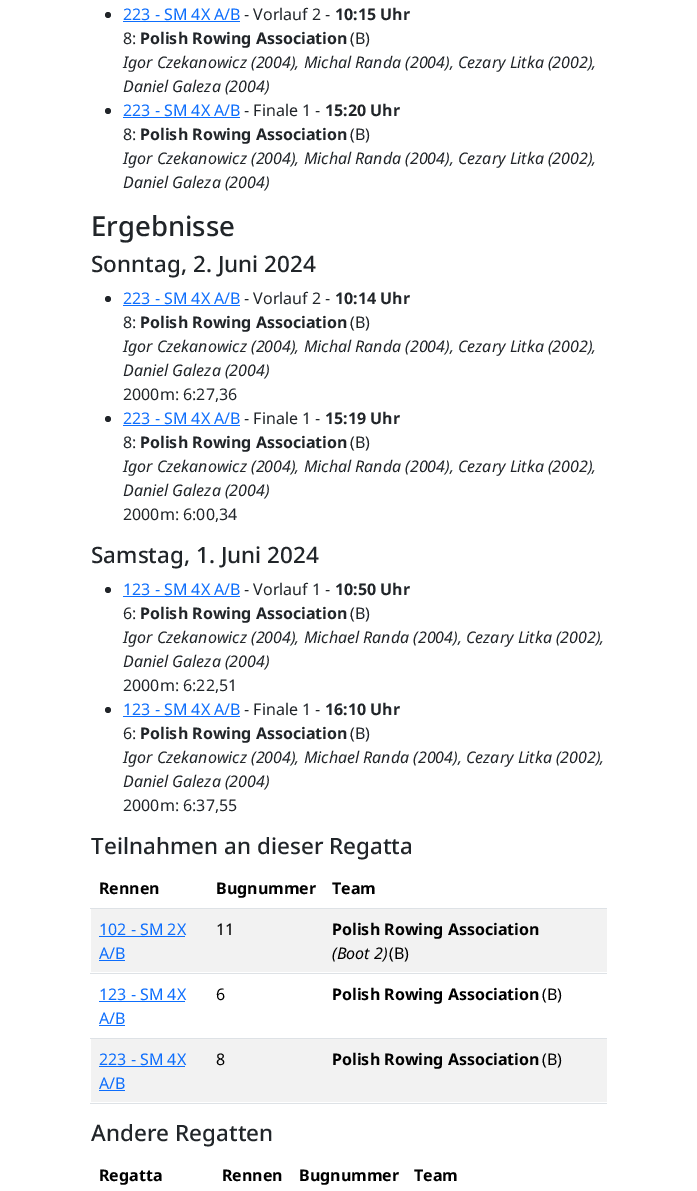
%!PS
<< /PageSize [697 1191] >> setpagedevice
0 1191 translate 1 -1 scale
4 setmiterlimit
1 setgray
0 0 697 1191 rectfill
0.129 0.145 0.161 setrgbcolor
newpath 108 15 3 0 360 arc closepath fill
/NotoSans-Regular [16 0 0 -16 0 0] selectfont
0.051 0.431 0.992 setrgbcolor
123 20 moveto (223 - SM 4X A/B) show
123 21 117 1 rectfill
0.129 0.145 0.161 setrgbcolor
244 20 moveto (- Vorlauf 2 -) show
/NotoSans-Bold [16 0 0 -16 0 0] selectfont
335 20 moveto (10:15 Uhr) show
/NotoSans-Regular [16 0 0 -16 0 0] selectfont
123 44 moveto (8:) show
/NotoSans-Bold [16 0 0 -16 0 0] selectfont
140 44 moveto (Polish Rowing Association) show
/NotoSans-Regular [16 0 0 -16 0 0] selectfont
350 44 moveto (\(B\)) show
/NotoSans-Italic [16 0 0 -16 0 0] selectfont
123 68 moveto (Igor Czekanowicz \(2004\), Michal Randa \(2004\), Cezary Litka \(2002\),) show
123 92 moveto (Daniel Galeza \(2004\)) show
newpath 108 111 3 0 360 arc closepath fill
/NotoSans-Regular [16 0 0 -16 0 0] selectfont
0.051 0.431 0.992 setrgbcolor
123 116 moveto (223 - SM 4X A/B) show
123 117 117 1 rectfill
0.129 0.145 0.161 setrgbcolor
244 116 moveto (- Finale 1 -) show
/NotoSans-Bold [16 0 0 -16 0 0] selectfont
325 116 moveto (15:20 Uhr) show
/NotoSans-Regular [16 0 0 -16 0 0] selectfont
123 140 moveto (8:) show
/NotoSans-Bold [16 0 0 -16 0 0] selectfont
140 140 moveto (Polish Rowing Association) show
/NotoSans-Regular [16 0 0 -16 0 0] selectfont
350 140 moveto (\(B\)) show
/NotoSans-Italic [16 0 0 -16 0 0] selectfont
123 164 moveto (Igor Czekanowicz \(2004\), Michal Randa \(2004\), Cezary Litka \(2002\),) show
123 188 moveto (Daniel Galeza \(2004\)) show
/NotoSans-Medium [27.5 0 0 -27.5 0 0] selectfont
91 236 moveto (Ergebnisse) show
/NotoSans-Medium [22.5 0 0 -22.5 0 0] selectfont
91 272 moveto (Sonntag, 2. Juni 2024) show
newpath 108 299 3 0 360 arc closepath fill
/NotoSans-Regular [16 0 0 -16 0 0] selectfont
0.051 0.431 0.992 setrgbcolor
123 304 moveto (223 - SM 4X A/B) show
123 305 117 1 rectfill
0.129 0.145 0.161 setrgbcolor
244 304 moveto (- Vorlauf 2 -) show
/NotoSans-Bold [16 0 0 -16 0 0] selectfont
335 304 moveto (10:14 Uhr) show
/NotoSans-Regular [16 0 0 -16 0 0] selectfont
123 328 moveto (8:) show
/NotoSans-Bold [16 0 0 -16 0 0] selectfont
140 328 moveto (Polish Rowing Association) show
/NotoSans-Regular [16 0 0 -16 0 0] selectfont
350 328 moveto (\(B\)) show
/NotoSans-Italic [16 0 0 -16 0 0] selectfont
123 352 moveto (Igor Czekanowicz \(2004\), Michal Randa \(2004\), Cezary Litka \(2002\),) show
123 376 moveto (Daniel Galeza \(2004\)) show
/NotoSans-Regular [16 0 0 -16 0 0] selectfont
123 400 moveto (2000m: 6:27,36) show
newpath 108 419 3 0 360 arc closepath fill
0.051 0.431 0.992 setrgbcolor
123 424 moveto (223 - SM 4X A/B) show
123 425 117 1 rectfill
0.129 0.145 0.161 setrgbcolor
244 424 moveto (- Finale 1 -) show
/NotoSans-Bold [16 0 0 -16 0 0] selectfont
325 424 moveto (15:19 Uhr) show
/NotoSans-Regular [16 0 0 -16 0 0] selectfont
123 448 moveto (8:) show
/NotoSans-Bold [16 0 0 -16 0 0] selectfont
140 448 moveto (Polish Rowing Association) show
/NotoSans-Regular [16 0 0 -16 0 0] selectfont
350 448 moveto (\(B\)) show
/NotoSans-Italic [16 0 0 -16 0 0] selectfont
123 472 moveto (Igor Czekanowicz \(2004\), Michal Randa \(2004\), Cezary Litka \(2002\),) show
123 496 moveto (Daniel Galeza \(2004\)) show
/NotoSans-Regular [16 0 0 -16 0 0] selectfont
123 520 moveto (2000m: 6:00,34) show
/NotoSans-Medium [22.5 0 0 -22.5 0 0] selectfont
91 563 moveto (Samstag, 1. Juni 2024) show
newpath 108 590 3 0 360 arc closepath fill
/NotoSans-Regular [16 0 0 -16 0 0] selectfont
0.051 0.431 0.992 setrgbcolor
123 595 moveto (123 - SM 4X A/B) show
123 596 117 1 rectfill
0.129 0.145 0.161 setrgbcolor
244 595 moveto (- Vorlauf 1 -) show
/NotoSans-Bold [16 0 0 -16 0 0] selectfont
335 595 moveto (10:50 Uhr) show
/NotoSans-Regular [16 0 0 -16 0 0] selectfont
123 619 moveto (6:) show
/NotoSans-Bold [16 0 0 -16 0 0] selectfont
140 619 moveto (Polish Rowing Association) show
/NotoSans-Regular [16 0 0 -16 0 0] selectfont
350 619 moveto (\(B\)) show
/NotoSans-Italic [16 0 0 -16 0 0] selectfont
123 643 moveto (Igor Czekanowicz \(2004\), Michael Randa \(2004\), Cezary Litka \(2002\),) show
123 667 moveto (Daniel Galeza \(2004\)) show
/NotoSans-Regular [16 0 0 -16 0 0] selectfont
123 691 moveto (2000m: 6:22,51) show
newpath 108 710 3 0 360 arc closepath fill
0.051 0.431 0.992 setrgbcolor
123 715 moveto (123 - SM 4X A/B) show
123 716 117 1 rectfill
0.129 0.145 0.161 setrgbcolor
244 715 moveto (- Finale 1 -) show
/NotoSans-Bold [16 0 0 -16 0 0] selectfont
325 715 moveto (16:10 Uhr) show
/NotoSans-Regular [16 0 0 -16 0 0] selectfont
123 739 moveto (6:) show
/NotoSans-Bold [16 0 0 -16 0 0] selectfont
140 739 moveto (Polish Rowing Association) show
/NotoSans-Regular [16 0 0 -16 0 0] selectfont
350 739 moveto (\(B\)) show
/NotoSans-Italic [16 0 0 -16 0 0] selectfont
123 763 moveto (Igor Czekanowicz \(2004\), Michael Randa \(2004\), Cezary Litka \(2002\),) show
123 787 moveto (Daniel Galeza \(2004\)) show
/NotoSans-Regular [16 0 0 -16 0 0] selectfont
123 811 moveto (2000m: 6:37,55) show
/NotoSans-Medium [22.5 0 0 -22.5 0 0] selectfont
91 854 moveto (Teilnahmen an dieser Regatta) show
/NotoSans-Bold [16 0 0 -16 0 0] selectfont
0 setgray
99 894 moveto (Rennen) show
216 894 moveto (Bugnummer) show
0.871 0.886 0.902 setrgbcolor
90 908 517 1 rectfill
0 setgray
332 894 moveto (Team) show
0.949 setgray
91 909 516 63 rectfill
/NotoSans-Regular [16 0 0 -16 0 0] selectfont
0.051 0.431 0.992 setrgbcolor
99 935 moveto (102 - SM 2X) show
99 936 86 1 rectfill
99 959 moveto (A/B) show
99 960 26 1 rectfill
0 setgray
216 935 moveto (11) show
0.871 0.886 0.902 setrgbcolor
90 973 517 1 rectfill
/NotoSans-Bold [16 0 0 -16 0 0] selectfont
0 setgray
332 935 moveto (Polish Rowing Association) show
/NotoSans-Italic [16 0 0 -16 0 0] selectfont
332 959 moveto (\(Boot 2\)) show
/NotoSans-Regular [16 0 0 -16 0 0] selectfont
389 959 moveto (\(B\)) show
0.051 0.431 0.992 setrgbcolor
99 1000 moveto (123 - SM 4X) show
99 1001 86 1 rectfill
99 1024 moveto (A/B) show
99 1025 26 1 rectfill
0 setgray
216 1000 moveto (6) show
0.871 0.886 0.902 setrgbcolor
90 1038 517 1 rectfill
/NotoSans-Bold [16 0 0 -16 0 0] selectfont
0 setgray
332 1000 moveto (Polish Rowing Association) show
/NotoSans-Regular [16 0 0 -16 0 0] selectfont
542 1000 moveto (\(B\)) show
0.949 setgray
91 1039 516 63 rectfill
0.051 0.431 0.992 setrgbcolor
99 1065 moveto (223 - SM 4X) show
99 1066 86 1 rectfill
99 1089 moveto (A/B) show
99 1090 26 1 rectfill
0 setgray
216 1065 moveto (8) show
0.871 0.886 0.902 setrgbcolor
90 1103 517 1 rectfill
/NotoSans-Bold [16 0 0 -16 0 0] selectfont
0 setgray
332 1065 moveto (Polish Rowing Association) show
/NotoSans-Regular [16 0 0 -16 0 0] selectfont
542 1065 moveto (\(B\)) show
/NotoSans-Medium [22.5 0 0 -22.5 0 0] selectfont
0.129 0.145 0.161 setrgbcolor
91 1141 moveto (Andere Regatten) show
/NotoSans-Bold [16 0 0 -16 0 0] selectfont
0 setgray
99 1181 moveto (Regatta) show
222 1181 moveto (Rennen) show
299 1181 moveto (Bugnummer) show
414 1181 moveto (Team) show
showpage
